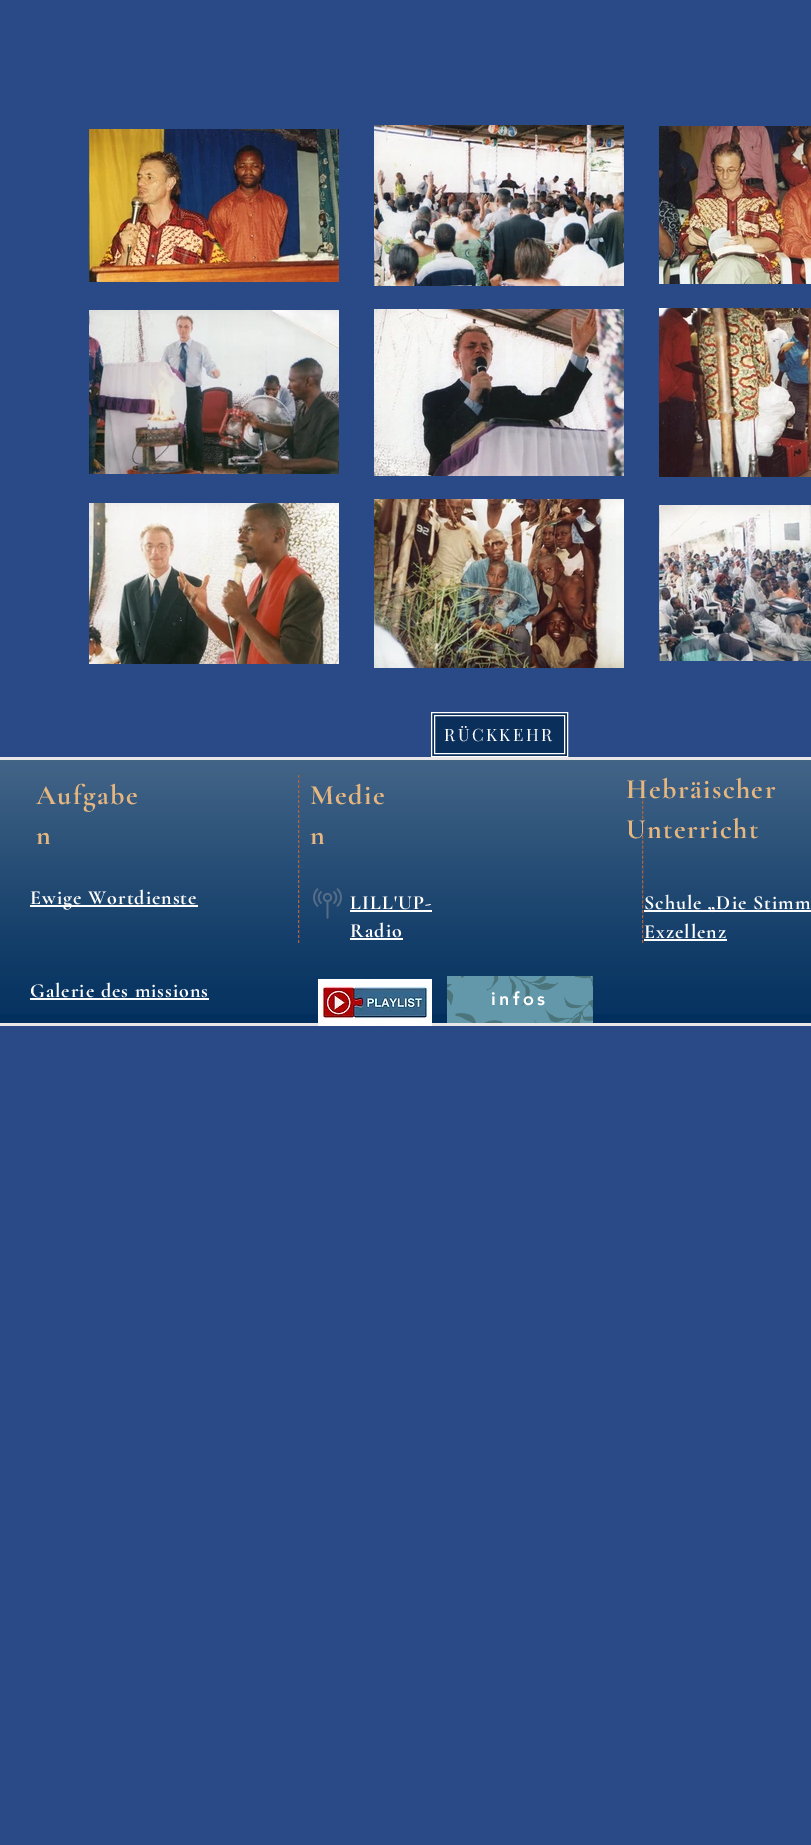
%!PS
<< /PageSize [811 1845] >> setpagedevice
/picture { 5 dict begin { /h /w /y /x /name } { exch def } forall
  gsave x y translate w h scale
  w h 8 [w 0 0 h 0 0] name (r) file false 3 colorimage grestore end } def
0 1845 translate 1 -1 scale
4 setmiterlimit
0.161 0.29 0.529 setrgbcolor
0 0 811 1845 rectfill
(img1.rgb) 89 129 250 153 picture
(img2.rgb) 374 125 250 161 picture
(img3.rgb) 659 126 152 158 picture
(img4.rgb) 89 310 250 164 picture
(img5.rgb) 374 309 250 167 picture
(img6.rgb) 659 308 152 169 picture
(img7.rgb) 89 503 250 161 picture
(img8.rgb) 374 499 250 169 picture
(img9.rgb) 659 505 152 156 picture
0.043 0.184 0.357 setrgbcolor
newpath 431.5 712.5 moveto 567.5 712.5 lineto 567.5 756.5 lineto 431.5 756.5 lineto closepath gsave fill grestore
1 setgray
stroke
434.5 715.5 130 38 rectstroke
/PlayfairDisplay-Regular [17 0 0 -17 0 0] selectfont
444 741 moveto 2.5 0 (RÜCKKEHR) ashow
0 0.18 0.365 setrgbcolor
0 760 811 263 rectfill
(img10.rgb) 0 760 811 254 picture
0.91 0.902 0.902 setrgbcolor
0 757 811 3 rectfill
0 1023 811 3 rectfill
0.682 0.388 0.247 setrgbcolor
[3 2] 0 setdash
newpath 298.5 775 moveto 298.5 943 lineto stroke
[3 1.97] 0 setdash
newpath 642.5 781 moveto 642.5 943 lineto stroke
/CormorantGaramond-Bold [28 0 0 -28 0 0] selectfont
0.902 0.714 0.506 setrgbcolor
626 798 moveto 1.4 0 (Hebräischer) ashow
626 838 moveto 1.4 0 (Unterricht) ashow
36 804 moveto 1.4 0 (Aufgabe) ashow
36 844 moveto 1.4 0 (n) ashow
310 804 moveto 1.4 0 (Medie) ashow
310 844 moveto 1.4 0 (n) ashow
1 setgray
30 905 168 2 rectfill
/CormorantGaramond-Bold [20 0 0 -20 0 0] selectfont
30 904 moveto 1 0 (Ewige Wortdienste) ashow
(img11.rgb) 313 888 29 31 picture
350 909 moveto 1 0 (LILL'UP-) ashow
1 1 0.996 setrgbcolor
350 910 82 2 rectfill
1 setgray
350 937 moveto 1 0 (Radio) ashow
1 1 0.996 setrgbcolor
350 938 53 2 rectfill
1 setgray
644 910 167 2 rectfill
644 909 moveto 1 0 (Schule „Die Stimm) ashow
644 938 moveto 1 0 (Exzellenz) ashow
644 939 83 2 rectfill
30 997 moveto 1 0 (Galerie des missions) ashow
1 1 0.996 setrgbcolor
30 998 179 2 rectfill
(img12.rgb) 318 979 114 47 picture
0.384 0.596 0.667 setrgbcolor
447 976 146 47 rectfill
(img13.rgb) 447 976 146 47 picture
/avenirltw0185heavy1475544-Black [18 0 0 -18 0 0] selectfont
1 setgray
491 1005 moveto 3.5 0 (infos) ashow
showpage
